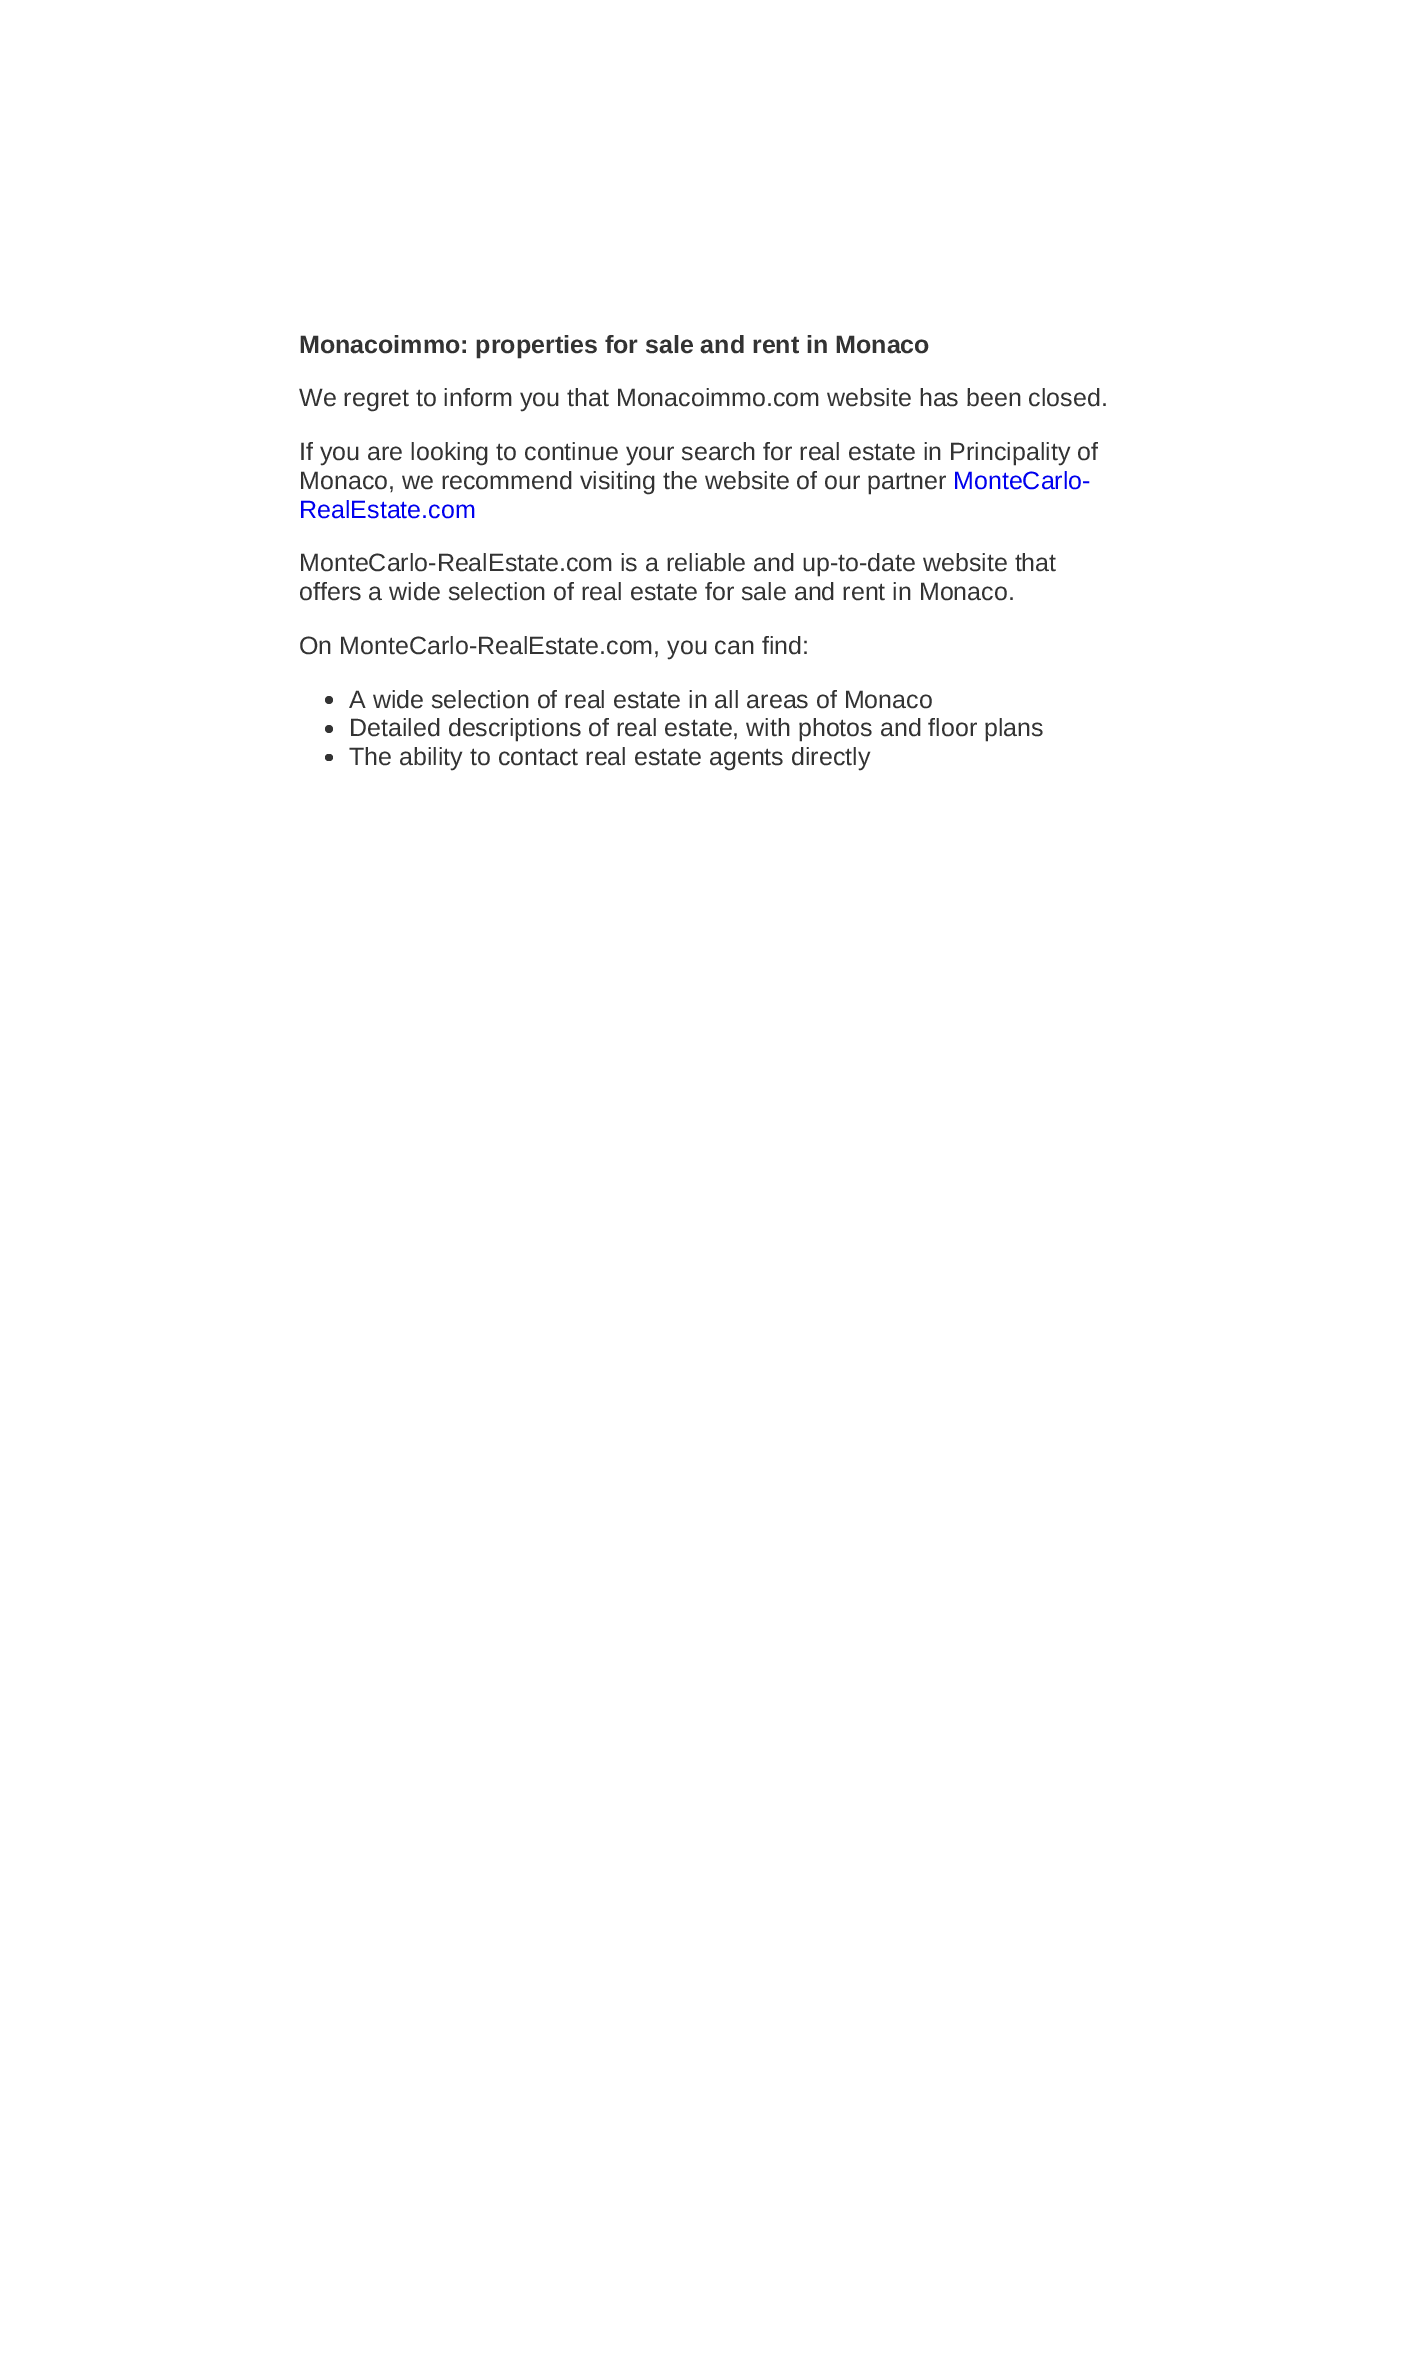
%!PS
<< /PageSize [1409 2365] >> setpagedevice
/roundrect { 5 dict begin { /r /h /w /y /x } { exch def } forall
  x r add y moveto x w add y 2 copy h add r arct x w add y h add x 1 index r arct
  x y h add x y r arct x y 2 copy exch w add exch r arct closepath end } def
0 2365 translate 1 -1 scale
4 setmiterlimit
1 setgray
0 0 1409 2365 rectfill
/LiberationSans-Bold [25 0 0 -25 0 0] selectfont
0.2 setgray
299 353 moveto (Monacoimmo: properties for sale and rent in Monaco) show
/LiberationSans-Regular [25 0 0 -25 0 0] selectfont
299 406 moveto (We regret to inform you that Monacoimmo.com website has been closed.) show
299 460 moveto (If you are looking to continue your search for real estate in Principality of) show
299 489 moveto (Monaco, we recommend visiting the website of our partner) show
0 0 0.933 setrgbcolor
953 489 moveto (MonteCarlo-) show
299 518 moveto (RealEstate.com) show
0.2 setgray
299 571 moveto (MonteCarlo-RealEstate.com is a reliable and up-to-date website that) show
299 600 moveto (offers a wide selection of real estate for sale and rent in Monaco.) show
299 654 moveto (On MonteCarlo-RealEstate.com, you can find:) show
newpath 329 700 4 0 360 arc closepath fill
349 708 moveto (A wide selection of real estate in all areas of Monaco) show
newpath 329 729 4 0 360 arc closepath fill
349 736 moveto (Detailed descriptions of real estate, with photos and floor plans) show
325 754 8 7 3.5 roundrect fill
349 765 moveto (The ability to contact real estate agents directly) show
showpage
